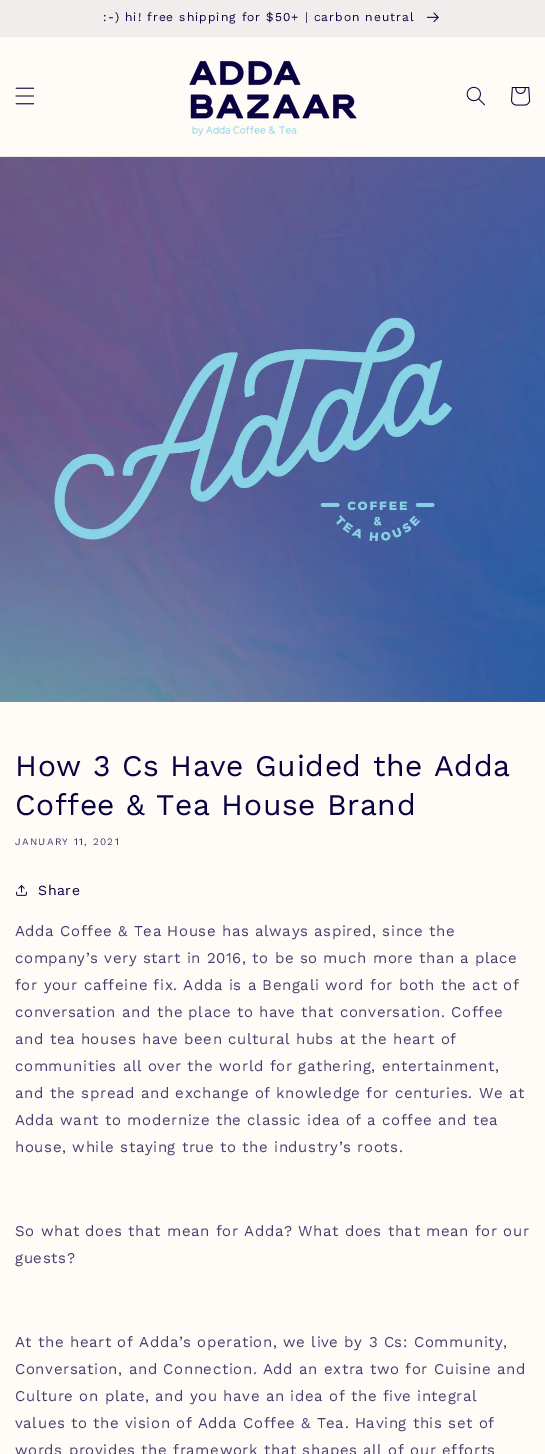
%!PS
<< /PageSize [545 1454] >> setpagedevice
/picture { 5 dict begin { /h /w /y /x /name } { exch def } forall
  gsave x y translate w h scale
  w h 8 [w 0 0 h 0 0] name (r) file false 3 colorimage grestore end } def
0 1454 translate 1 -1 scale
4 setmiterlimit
1 0.988 0.969 setrgbcolor
0 0 545 1454 rectfill
0.922 0.91 0.91 setrgbcolor
0 36 545 1 rectfill
0.941 0.929 0.925 setrgbcolor
0 0 545 36 rectfill
/WorkSans-Regular [12 0 0 -12 0 0] selectfont
0.039 0.004 0.255 setrgbcolor
103 21 moveto 1 0 (:-\) hi! free shipping for $50+ | carbon neutral) ashow
(img1.rgb) 427 12 12 10 picture
0.922 0.91 0.91 setrgbcolor
0 156 545 1 rectfill
(img2.rgb) 15 87 20 18 picture
(img3.rgb) 189 60 168 76 picture
(img4.rgb) 466 86 19 20 picture
(img5.rgb) 511 87 20 19 picture
(img6.rgb) 0 157 545 545 picture
/WorkSans-Regular [30 0 0 -30 0 0] selectfont
0.039 0.004 0.255 setrgbcolor
15 776 moveto 0.6 0 (How 3 Cs Have Guided the Adda) ashow
15 815 moveto 0.6 0 (Coffee & Tea House Brand) ashow
/WorkSans-Regular [10 0 0 -10 0 0] selectfont
0.278 0.251 0.435 setrgbcolor
15 845 moveto 1.25 0 (JANUARY 11, 2021) ashow
(img7.rgb) 16 885 11 11 picture
/WorkSans-Regular [14 0 0 -14 0 0] selectfont
0.039 0.004 0.255 setrgbcolor
38 895 moveto 0.6 0 (Share) ashow
/WorkSans-Regular [15 0 0 -15 0 0] selectfont
0.278 0.251 0.435 setrgbcolor
15 936 moveto 0.6 0 (Adda Coffee & Tea House has always aspired, since the) ashow
15 963 moveto 0.6 0 (company’s very start in 2016, to be so much more than a place) ashow
15 990 moveto 0.6 0 (for your caffeine fix. Adda is a Bengali word for both the act of) ashow
15 1017 moveto 0.6 0 (conversation and the place to have that conversation. Coffee) ashow
15 1044 moveto 0.6 0 (and tea houses have been cultural hubs at the heart of) ashow
15 1071 moveto 0.6 0 (communities all over the world for gathering, entertainment,) ashow
15 1098 moveto 0.6 0 (and the spread and exchange of knowledge for centuries. We at) ashow
15 1125 moveto 0.6 0 (Adda want to modernize the classic idea of a coffee and tea) ashow
15 1152 moveto 0.6 0 (house, while staying true to the industry’s roots.) ashow
15 1236 moveto 0.6 0 (So what does that mean for Adda? What does that mean for our) ashow
15 1263 moveto 0.6 0 (guests?) ashow
15 1347 moveto 0.6 0 (At the heart of Adda’s operation, we live by 3 Cs: Community,) ashow
15 1374 moveto 0.6 0 (Conversation, and Connection. Add an extra two for Cuisine and) ashow
15 1401 moveto 0.6 0 (Culture on plate, and you have an idea of the five integral) ashow
15 1428 moveto 0.6 0 (values to the vision of Adda Coffee & Tea. Having this set of) ashow
15 1455 moveto 0.6 0 (words provides the framework that shapes all of our efforts) ashow
showpage
